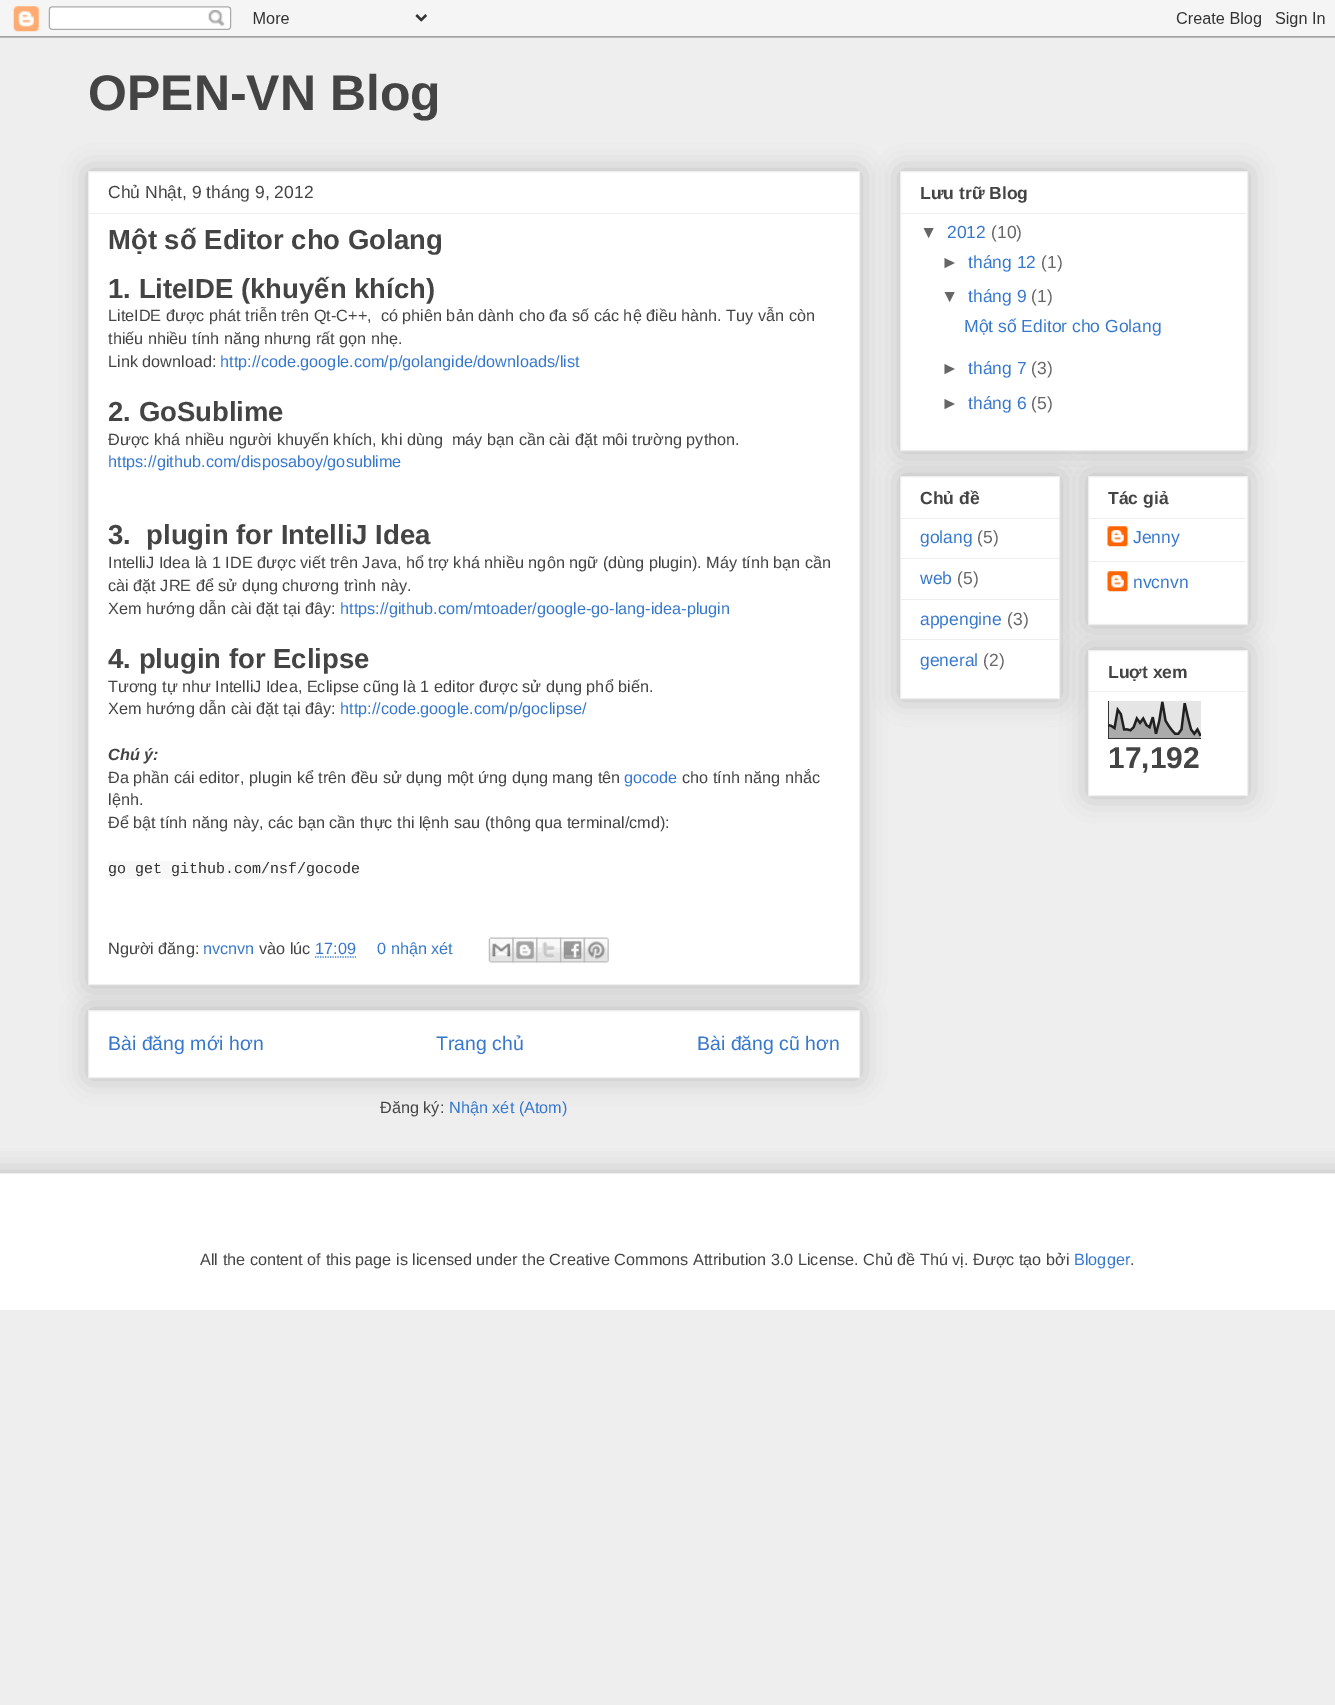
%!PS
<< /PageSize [1335 1705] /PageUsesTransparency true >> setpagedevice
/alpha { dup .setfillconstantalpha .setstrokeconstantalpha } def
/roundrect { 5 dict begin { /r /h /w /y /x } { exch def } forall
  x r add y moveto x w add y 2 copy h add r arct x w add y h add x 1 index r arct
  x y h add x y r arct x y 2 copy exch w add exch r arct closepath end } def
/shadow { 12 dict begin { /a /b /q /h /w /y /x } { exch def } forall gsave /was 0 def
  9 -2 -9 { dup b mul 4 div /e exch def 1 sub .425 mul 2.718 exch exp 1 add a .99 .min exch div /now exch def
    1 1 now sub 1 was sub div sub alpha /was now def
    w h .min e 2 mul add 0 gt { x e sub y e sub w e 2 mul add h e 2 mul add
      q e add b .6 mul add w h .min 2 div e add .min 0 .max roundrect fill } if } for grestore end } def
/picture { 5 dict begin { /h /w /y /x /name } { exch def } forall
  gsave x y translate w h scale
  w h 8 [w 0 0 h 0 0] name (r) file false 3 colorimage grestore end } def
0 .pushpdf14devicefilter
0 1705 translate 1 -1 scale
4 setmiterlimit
0.933 setgray
0 0 1335 1705 rectfill
(img1.rgb) 0 0 1335 38 picture
/LiberationSans-Bold [50 0 0 -50 0 0] selectfont
0.267 setgray
88 110 moveto (OPEN-VN Blog) show
0 setgray
88 1010 772 68 0 12.5 0.2 shadow
1 setgray
newpath 88.5 1010.5 moveto 859.5 1010.5 lineto 859.5 1077.5 lineto 88.5 1077.5 lineto closepath gsave fill grestore
0.933 setgray
stroke
0 setgray
88 171 772 814 0 12.5 0.2 shadow
1 setgray
newpath 88.5 171.5 moveto 859.5 171.5 lineto 859.5 984.5 lineto 88.5 984.5 lineto closepath gsave fill grestore
0.933 setgray
stroke
/LiberationSans-Regular [17.5 0 0 -17.5 0 0] selectfont
0.267 setgray
108 198 moveto (Chủ Nhật, 9 tháng 9, 2012) show
0.933 setgray
89 213 770 1 rectfill
/LiberationSans-Bold [27.5 0 0 -27.5 0 0] selectfont
0.267 setgray
108 249 moveto (Một số Editor cho Golang) show
108 298 moveto (1. LiteIDE \(khuyến khích\)) show
/LiberationSans-Regular [16.25 0 0 -16.25 0 0] selectfont
108 321 moveto (LiteIDE được phát triễn trên Qt-C++,  có phiên bản dành cho đa số các hệ điều hành. Tuy vẫn còn) show
108 344 moveto (thiếu nhiều tính năng nhưng rất gọn nhẹ.) show
108 367 moveto (Link download:) show
0.216 0.471 0.804 setrgbcolor
220 367 moveto (http://code.google.com/p/golangide/downloads/list) show
/LiberationSans-Bold [27.5 0 0 -27.5 0 0] selectfont
0.267 setgray
108 421 moveto (2. GoSublime) show
/LiberationSans-Regular [16.25 0 0 -16.25 0 0] selectfont
108 445 moveto (Được khá nhiều người khuyến khích, khi dùng  máy bạn cần cài đặt môi trường python.) show
0.216 0.471 0.804 setrgbcolor
108 467 moveto (https://github.com/disposaboy/gosublime) show
/LiberationSans-Bold [27.5 0 0 -27.5 0 0] selectfont
0.267 setgray
108 544 moveto (3.  plugin for IntelliJ Idea) show
/LiberationSans-Regular [16.25 0 0 -16.25 0 0] selectfont
108 568 moveto (IntelliJ Idea là 1 IDE được viết trên Java, hổ trợ khá nhiều ngôn ngữ \(dùng plugin\). Máy tính bạn cần) show
108 591 moveto (cài đặt JRE để sử dụng chương trình này.) show
108 614 moveto (Xem hướng dẫn cài đặt tại đây:) show
0.216 0.471 0.804 setrgbcolor
340 614 moveto (https://github.com/mtoader/google-go-lang-idea-plugin) show
/LiberationSans-Bold [27.5 0 0 -27.5 0 0] selectfont
0.267 setgray
108 668 moveto (4. plugin for Eclipse) show
/LiberationSans-Regular [16.25 0 0 -16.25 0 0] selectfont
108 692 moveto (Tương tự như IntelliJ Idea, Eclipse cũng là 1 editor được sử dụng phổ biến.) show
108 714 moveto (Xem hướng dẫn cài đặt tại đây:) show
0.216 0.471 0.804 setrgbcolor
340 714 moveto (http://code.google.com/p/goclipse/) show
/LiberationSans-BoldItalic [16.25 0 0 -16.25 0 0] selectfont
0.267 setgray
108 760 moveto (Chú ý:) show
/LiberationSans-Regular [16.25 0 0 -16.25 0 0] selectfont
108 783 moveto (Đa phần cái editor, plugin kể trên đều sử dụng một ứng dụng mang tên) show
0.216 0.471 0.804 setrgbcolor
624 783 moveto (gocode) show
0.267 setgray
682 783 moveto (cho tính năng nhắc) show
108 805 moveto (lệnh.) show
108 828 moveto (Để bật tính năng này, các bạn cần thực thi lệnh sau \(thông qua terminal/cmd\):) show
0.973 setgray
108 861 252 18 rectfill
/LiberationMono-Regular [15 0 0 -15 0 0] selectfont
0.2 setgray
108 873 moveto (go get github.com/nsf/gocode) show
/LiberationSans-Regular [16.25 0 0 -16.25 0 0] selectfont
0.267 setgray
108 954 moveto (Người đăng:) show
0.216 0.471 0.804 setrgbcolor
203 954 moveto (nvcnvn) show
0.267 setgray
259 954 moveto (vào lúc) show
0.216 0.471 0.804 setrgbcolor
315 954 moveto (17:09) show
1.2 setlinewidth
[1.25 1.25] 0 setdash
newpath 315 957 moveto 356 957 lineto stroke
377 954 moveto (0 nhận xét) show
(img2.rgb) 488 937 26 26 picture
(img3.rgb) 512 937 26 26 picture
(img4.rgb) 536 937 26 26 picture
(img5.rgb) 560 937 25 26 picture
(img6.rgb) 583 937 26 26 picture
/LiberationSans-Regular [19.5 0 0 -19.5 0 0] selectfont
108 1050 moveto (Bài đăng mới hơn) show
436 1050 moveto (Trang chủ) show
697 1050 moveto (Bài đăng cũ hơn) show
/LiberationSans-Regular [16.25 0 0 -16.25 0 0] selectfont
0.267 setgray
380 1113 moveto (Đăng ký:) show
0.216 0.471 0.804 setrgbcolor
449 1113 moveto (Nhận xét \(Atom\)) show
0 setgray
900 171 348 280 0 12.5 0.2 shadow
1 setgray
newpath 900.5 171.5 moveto 1247.5 171.5 lineto 1247.5 450.5 lineto 900.5 450.5 lineto closepath gsave fill grestore
0.933 setgray
1 setlinewidth
[] 0 setdash
stroke
/LiberationSans-Bold [17.5 0 0 -17.5 0 0] selectfont
0.267 setgray
920 199 moveto (Lưu trữ Blog) show
0.933 setgray
901 213 345 1 rectfill
/LiberationSans-Regular [17.5 0 0 -17.5 0 0] selectfont
0.4 setgray
920 238 moveto (▼) show
0.216 0.471 0.804 setrgbcolor
947 238 moveto (2012) show
0.4 setgray
991 238 moveto (\(10\)) show
941 268 moveto (►) show
0.216 0.471 0.804 setrgbcolor
968 268 moveto (tháng 12) show
0.4 setgray
1041 268 moveto (\(1\)) show
941 302 moveto (▼) show
0.216 0.471 0.804 setrgbcolor
968 302 moveto (tháng 9) show
0.4 setgray
1031 302 moveto (\(1\)) show
0.216 0.471 0.804 setrgbcolor
964 332 moveto (Một số Editor cho Golang) show
0.4 setgray
941 374 moveto (►) show
0.216 0.471 0.804 setrgbcolor
968 374 moveto (tháng 7) show
0.4 setgray
1031 374 moveto (\(3\)) show
941 409 moveto (►) show
0.216 0.471 0.804 setrgbcolor
968 409 moveto (tháng 6) show
0.4 setgray
1031 409 moveto (\(5\)) show
0 setgray
900 476 160 223 0 12.5 0.2 shadow
1 setgray
newpath 900.5 476.5 moveto 1059.5 476.5 lineto 1059.5 698.5 lineto 900.5 698.5 lineto closepath gsave fill grestore
0.933 setgray
stroke
/LiberationSans-Bold [17.5 0 0 -17.5 0 0] selectfont
0.267 setgray
920 504 moveto (Chủ đề) show
0.933 setgray
901 518 158 1 rectfill
/LiberationSans-Regular [17.5 0 0 -17.5 0 0] selectfont
0.216 0.471 0.804 setrgbcolor
920 543 moveto (golang) show
0.4 setgray
977 543 moveto (\(5\)) show
0.933 setgray
901 558 158 1 rectfill
0.216 0.471 0.804 setrgbcolor
920 584 moveto (web) show
0.4 setgray
957 584 moveto (\(5\)) show
0.933 setgray
901 599 158 1 rectfill
0.216 0.471 0.804 setrgbcolor
920 625 moveto (appengine) show
0.4 setgray
1007 625 moveto (\(3\)) show
0.933 setgray
901 639 158 1 rectfill
0.216 0.471 0.804 setrgbcolor
920 666 moveto (general) show
0.4 setgray
983 666 moveto (\(2\)) show
0 setgray
1088 476 160 149 0 12.5 0.2 shadow
1 setgray
newpath 1088.5 476.5 moveto 1247.5 476.5 lineto 1247.5 624.5 lineto 1088.5 624.5 lineto closepath gsave fill grestore
0.933 setgray
stroke
/LiberationSans-Bold [17.5 0 0 -17.5 0 0] selectfont
0.267 setgray
1108 504 moveto (Tác giả) show
0.933 setgray
1089 518 157 1 rectfill
(img7.rgb) 1107 526 21 21 picture
/LiberationSans-Regular [17.5 0 0 -17.5 0 0] selectfont
0.216 0.471 0.804 setrgbcolor
1133 543 moveto (Jenny) show
0.933 setgray
1089 561 157 1 rectfill
(img7.rgb) 1107 571 21 21 picture
0.216 0.471 0.804 setrgbcolor
1133 588 moveto (nvcnvn) show
0 setgray
1088 650 160 146 0 12.5 0.2 shadow
1 setgray
newpath 1088.5 650.5 moveto 1247.5 650.5 lineto 1247.5 795.5 lineto 1088.5 795.5 lineto closepath gsave fill grestore
0.933 setgray
stroke
/LiberationSans-Bold [17.5 0 0 -17.5 0 0] selectfont
0.267 setgray
1108 678 moveto (Luợt xem) show
0.933 setgray
1089 691 157 1 rectfill
(img8.rgb) 1108 701 93 38 picture
/LiberationSans-Bold [30 0 0 -30 0 0] selectfont
0.267 setgray
1108 768 moveto (17,192) show
gsave
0 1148 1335 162 rectclip
0 setgray
-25 1173 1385 137 0 12.5 0.2 shadow
grestore
1 setgray
0 1174 1335 136 rectfill
0.933 setgray
0 1173 1335 1 rectfill
/LiberationSans-Regular [16.25 0 0 -16.25 0 0] selectfont
0.267 setgray
200 1265 moveto (All the content of this page is licensed under the Creative Commons Attribution 3.0 License. Chủ đề Thú vị. Được tạo bởi) show
0.216 0.471 0.804 setrgbcolor
1074 1265 moveto (Blogger) show
0.267 setgray
1130 1265 moveto (.) show
.poppdf14devicefilter showpage
